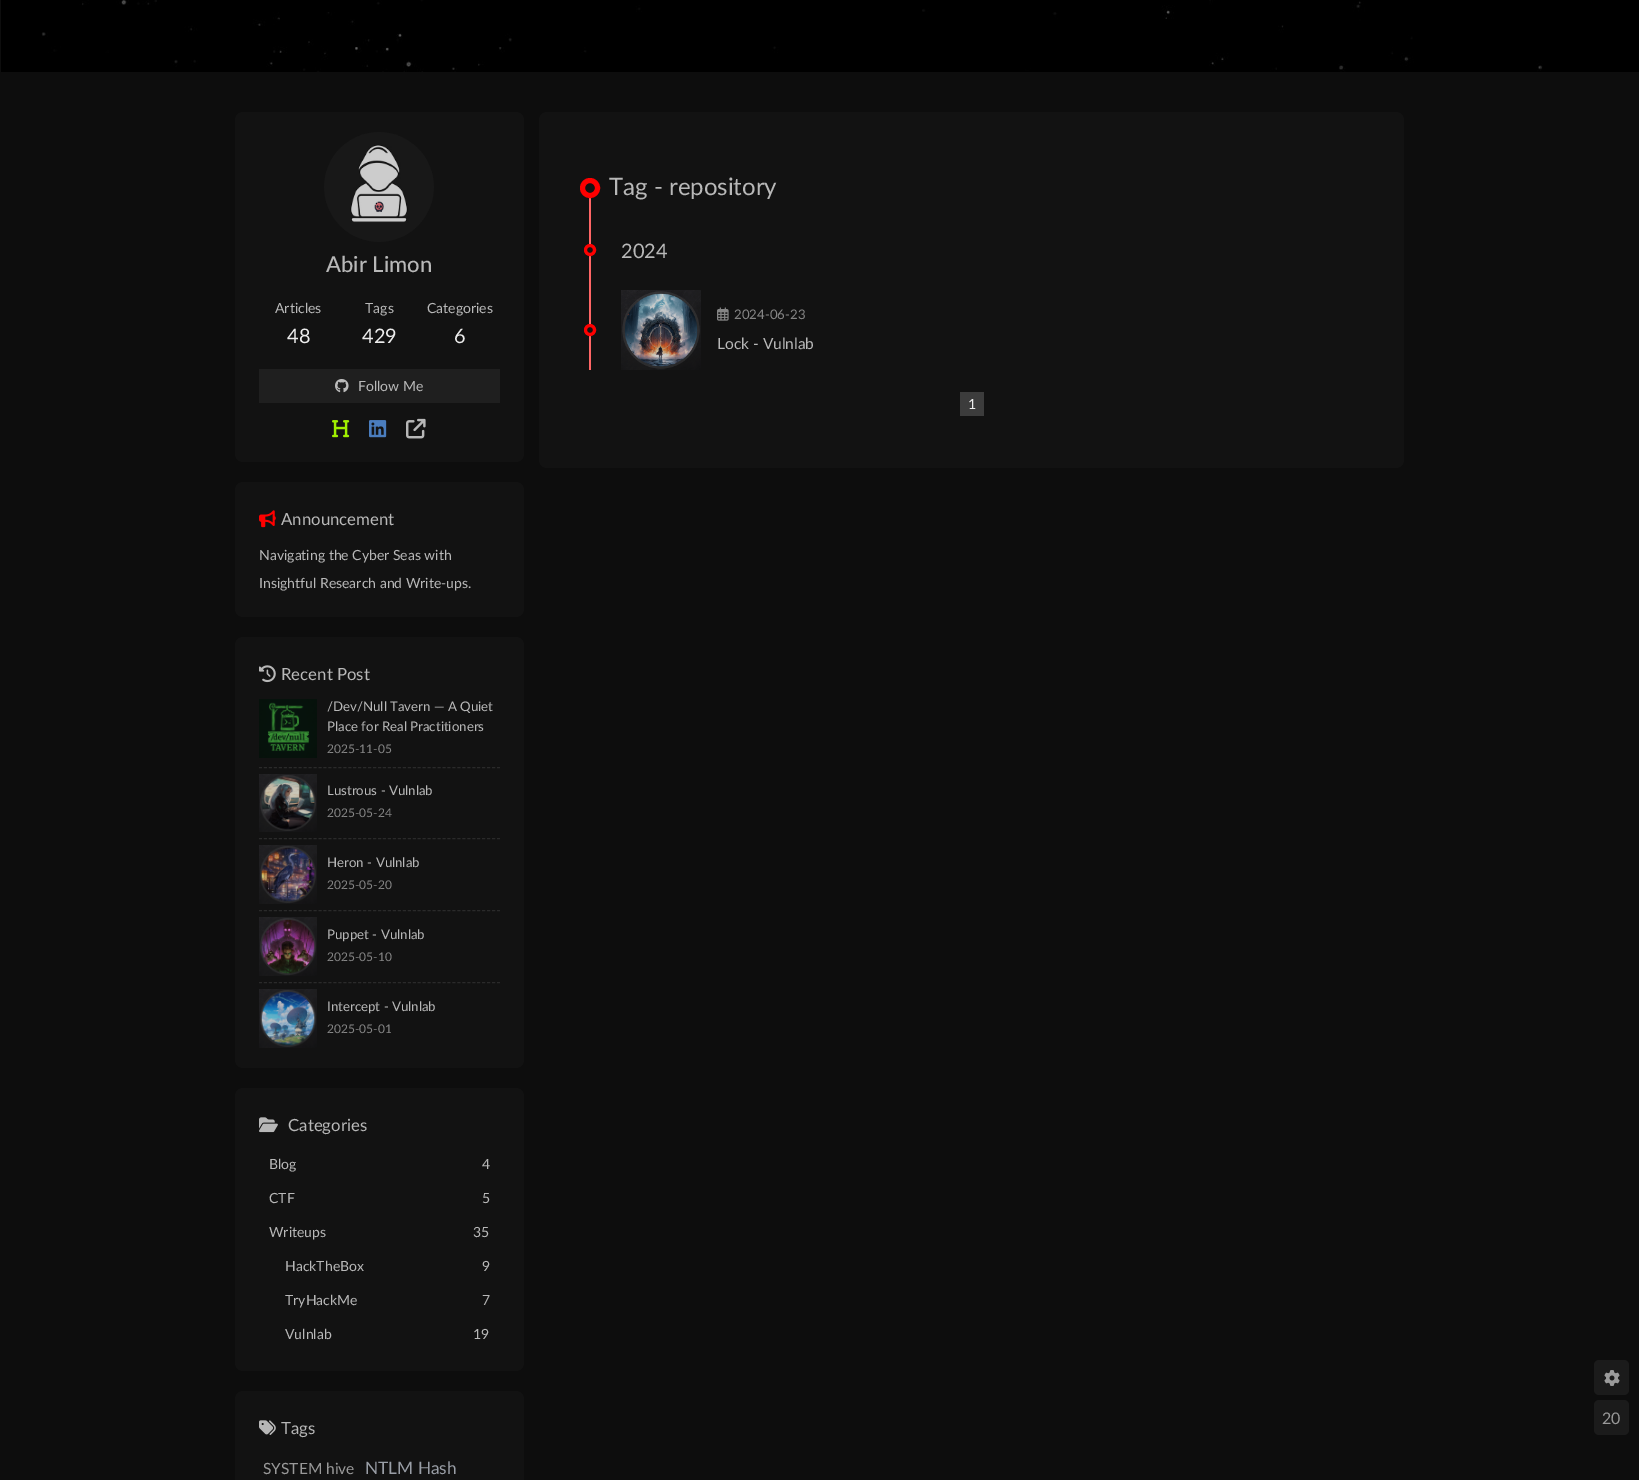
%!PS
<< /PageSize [1639 1480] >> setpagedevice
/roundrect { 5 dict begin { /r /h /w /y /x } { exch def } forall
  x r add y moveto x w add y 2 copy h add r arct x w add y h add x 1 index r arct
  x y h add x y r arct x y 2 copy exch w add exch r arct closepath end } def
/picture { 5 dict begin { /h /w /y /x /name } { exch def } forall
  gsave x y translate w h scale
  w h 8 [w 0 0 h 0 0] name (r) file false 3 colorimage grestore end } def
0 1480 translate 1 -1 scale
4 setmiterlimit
0.051 setgray
0 0 1639 1480 rectfill
(img1.rgb) 1 0 1638 72 picture
0.071 setgray
235 112 289 350 8 roundrect fill
(img2.rgb) 324 132 110 110 picture
/Lato-Medium [22 0 0 -22 0 0] selectfont
0.722 setgray
326 272 moveto (Abir Limon) show
/Lato-Regular [14 0 0 -14 0 0] selectfont
275 313 moveto (Articles) show
/Lato-Regular [20 0 0 -20 0 0] selectfont
0.925 setgray
287 343 moveto (48) show
/Lato-Regular [14 0 0 -14 0 0] selectfont
0.722 setgray
365 313 moveto (Tags) show
/Lato-Regular [20 0 0 -20 0 0] selectfont
0.925 setgray
362 343 moveto (429) show
/Lato-Regular [14 0 0 -14 0 0] selectfont
0.722 setgray
427 313 moveto (Categories) show
/Lato-Regular [20 0 0 -20 0 0] selectfont
0.925 setgray
454 343 moveto (6) show
0.122 setgray
259 369 241 34 rectfill
(img3.rgb) 335 379 14 14 picture
/Lato-Regular [14 0 0 -14 0 0] selectfont
0.722 setgray
358 391 moveto (Follow Me) show
(img4.rgb) 332 420 18 18 picture
(img5.rgb) 369 420 18 18 picture
(img6.rgb) 406 418 20 21 picture
0.071 setgray
235 482 289 135 8 roundrect fill
(img7.rgb) 259 510 17 18 picture
/Lato-Regular [16.75 0 0 -16.75 0 0] selectfont
0.722 setgray
281 525 moveto (Announcement) show
/Lato-Regular [14 0 0 -14 0 0] selectfont
259 560 moveto (Navigating the Cyber Seas with) show
259 588 moveto (Insightful Research and Write-ups.) show
0.071 setgray
235 637 289 431 8 roundrect fill
(img8.rgb) 259 665 17 18 picture
/Lato-Regular [16.75 0 0 -16.75 0 0] selectfont
0.722 setgray
281 680 moveto (Recent Post) show
0.165 setgray
[3 1.96] 0 setdash
newpath 259 767.5 moveto 500 767.5 lineto stroke
(img9.rgb) 259 699 58 59 picture
/Lato-Regular [13.25 0 0 -13.25 0 0] selectfont
0.722 setgray
327 711 moveto (/Dev/Null Tavern — A Quiet) show
327 731 moveto (Place for Real Practitioners) show
/Lato-Regular [12 0 0 -12 0 0] selectfont
0.522 setgray
327 753 moveto (2025-11-05) show
0.165 setgray
newpath 259 838.5 moveto 500 838.5 lineto stroke
(img10.rgb) 259 774 58 58 picture
/Lato-Regular [13.25 0 0 -13.25 0 0] selectfont
0.722 setgray
327 795 moveto (Lustrous - Vulnlab) show
/Lato-Regular [12 0 0 -12 0 0] selectfont
0.522 setgray
327 817 moveto (2025-05-24) show
0.165 setgray
newpath 259 910.5 moveto 500 910.5 lineto stroke
(img11.rgb) 259 845 58 59 picture
/Lato-Regular [13.25 0 0 -13.25 0 0] selectfont
0.722 setgray
327 867 moveto (Heron - Vulnlab) show
/Lato-Regular [12 0 0 -12 0 0] selectfont
0.522 setgray
327 889 moveto (2025-05-20) show
0.165 setgray
newpath 259 982.5 moveto 500 982.5 lineto stroke
(img12.rgb) 259 917 58 59 picture
/Lato-Regular [13.25 0 0 -13.25 0 0] selectfont
0.722 setgray
327 939 moveto (Puppet - Vulnlab) show
/Lato-Regular [12 0 0 -12 0 0] selectfont
0.522 setgray
327 961 moveto (2025-05-10) show
(img13.rgb) 259 989 58 59 picture
/Lato-Regular [13.25 0 0 -13.25 0 0] selectfont
0.722 setgray
327 1011 moveto (Intercept - Vulnlab) show
/Lato-Regular [12 0 0 -12 0 0] selectfont
0.522 setgray
327 1033 moveto (2025-05-01) show
0.071 setgray
235 1088 289 283 8 roundrect fill
(img14.rgb) 259 1117 19 16 picture
/Lato-Regular [16.75 0 0 -16.75 0 0] selectfont
0.722 setgray
288 1131 moveto (Categories) show
/Lato-Regular [14 0 0 -14 0 0] selectfont
269 1169 moveto (Blog) show
482 1169 moveto (4) show
269 1203 moveto (CTF) show
482 1203 moveto (5) show
269 1237 moveto (Writeups) show
473 1237 moveto (35) show
285 1271 moveto (HackTheBox) show
482 1271 moveto (9) show
285 1305 moveto (TryHackMe) show
482 1305 moveto (7) show
285 1339 moveto (Vulnlab) show
473 1339 moveto (19) show
0.071 setgray
235 1391 289 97 8 roundrect fill
(img15.rgb) 259 1420 17 15 picture
/Lato-Regular [16.75 0 0 -16.75 0 0] selectfont
0.722 setgray
281 1434 moveto (Tags) show
/Lato-Regular [15.5 0 0 -15.5 0 0] selectfont
0.6 setgray
263 1474 moveto (SYSTEM hive) show
/Lato-Regular [17.25 0 0 -17.25 0 0] selectfont
0.6 0.62 0.651 setrgbcolor
365 1474 moveto (NTLM Hash) show
0.071 setgray
539 112 865 356 8 roundrect fill
1 0.4 0.4 setrgbcolor
589 194 2 176 rectfill
0.071 setgray
newpath 590 188 7.5 0 360 arc closepath gsave fill grestore
1 0 0 setrgbcolor
5 setlinewidth
[] 0 setdash
stroke
/Lato-Regular [24 0 0 -24 0 0] selectfont
0.722 setgray
609 195 moveto (Tag - repository) show
0.071 setgray
newpath 590 250 4.5 0 360 arc closepath gsave fill grestore
1 0 0 setrgbcolor
3 setlinewidth
stroke
/Lato-Regular [20 0 0 -20 0 0] selectfont
0.722 setgray
621 258 moveto (2024) show
0.071 setgray
newpath 590 330 4.5 0 360 arc closepath gsave fill grestore
1 0 0 setrgbcolor
stroke
(img16.rgb) 621 290 80 80 picture
(img17.rgb) 717 307 12 14 picture
/Lato-Regular [13.25 0 0 -13.25 0 0] selectfont
0.522 setgray
734 319 moveto (2024-06-23) show
/Lato-Regular [15.5 0 0 -15.5 0 0] selectfont
0.722 setgray
717 349 moveto (Lock - Vulnlab) show
0.235 setgray
960 392 24 24 rectfill
/Lato-Regular [14 0 0 -14 0 0] selectfont
0.925 setgray
968 409 moveto (1) show
0.106 setgray
1594 1360 35 35 5 roundrect fill
(img18.rgb) 1604 1370 16 16 picture
1594 1400 35 35 5 roundrect fill
/Lato-Regular [16 0 0 -16 0 0] selectfont
0.6 setgray
1602 1424 moveto (20) show
showpage
